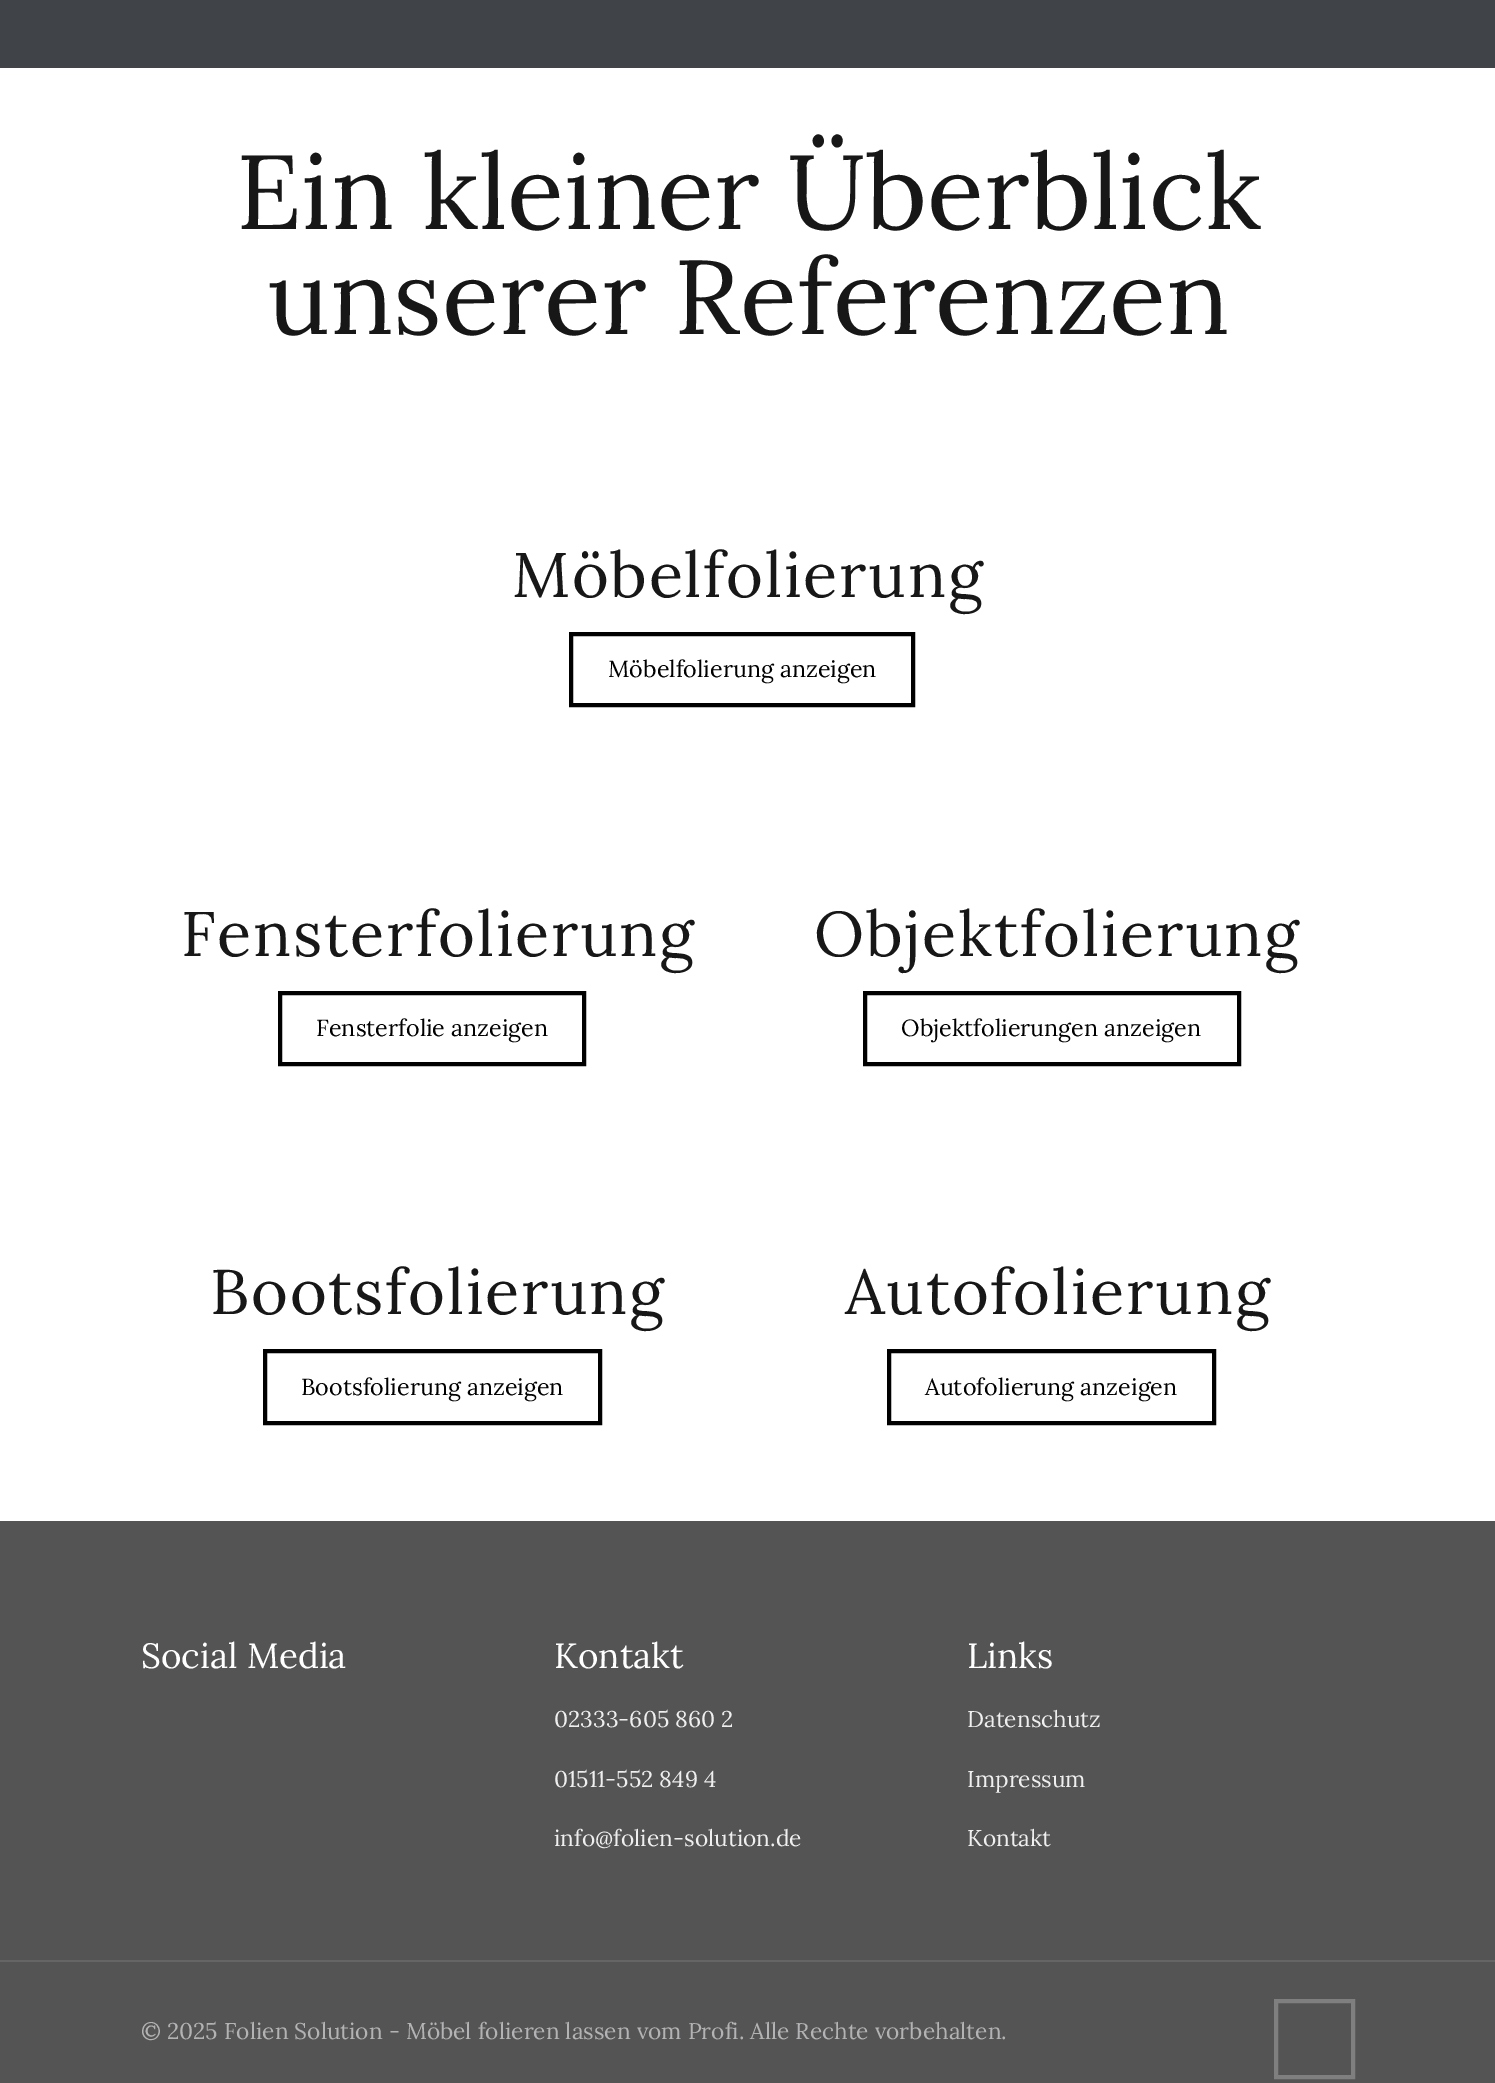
%!PS
<< /PageSize [1495 2083] >> setpagedevice
0 2083 translate 1 -1 scale
4 setmiterlimit
1 setgray
0 0 1495 2083 rectfill
0.251 0.263 0.282 setrgbcolor
0 0 1495 68 rectfill
/Lora-Regular [105 0 0 -105 0 0] selectfont
0.09 setgray
236 229 moveto (Ein kleiner Überblick) show
267 334 moveto (unserer Referenzen) show
/Lora-Regular [63 0 0 -63 0 0] selectfont
512 597 moveto 1.75 0 (Möbelfolierung) ashow
0 setgray
4 setlinewidth
571 634 342 71 rectstroke
/Lora-Regular [23.3 0 0 -23.3 0 0] selectfont
608 677 moveto (Möbelfolierung anzeigen) show
/Lora-Regular [63 0 0 -63 0 0] selectfont
0.09 setgray
181 956 moveto 1.75 0 (Fensterfolierung) ashow
0 setgray
280 993 304 71 rectstroke
/Lora-Regular [23.3 0 0 -23.3 0 0] selectfont
316 1036 moveto (Fensterfolie anzeigen) show
/Lora-Regular [63 0 0 -63 0 0] selectfont
0.09 setgray
814 956 moveto 1.75 0 (Objektfolierung) ashow
0 setgray
865 993 374 71 rectstroke
/Lora-Regular [23.3 0 0 -23.3 0 0] selectfont
901 1036 moveto (Objektfolierungen anzeigen) show
/Lora-Regular [63 0 0 -63 0 0] selectfont
0.09 setgray
210 1314 moveto 1.75 0 (Bootsfolierung) ashow
0 setgray
265 1351 335 72 rectstroke
/Lora-Regular [23.3 0 0 -23.3 0 0] selectfont
301 1395 moveto (Bootsfolierung anzeigen) show
/Lora-Regular [63 0 0 -63 0 0] selectfont
0.09 setgray
845 1314 moveto 1.75 0 (Autofolierung) ashow
0 setgray
889 1351 325 72 rectstroke
/Lora-Regular [23.3 0 0 -23.3 0 0] selectfont
925 1395 moveto (Autofolierung anzeigen) show
0.329 setgray
0 1521 1495 562 rectfill
/Lora-Regular [35 0 0 -35 0 0] selectfont
1 setgray
141 1668 moveto (Social Media) show
554 1668 moveto (Kontakt) show
/Lora-Regular [22.75 0 0 -22.75 0 0] selectfont
0.937 setgray
554 1727 moveto (02333-605 860 2) show
554 1787 moveto (01511-552 849 4) show
554 1846 moveto (info@folien-solution.de) show
/Lora-Regular [35 0 0 -35 0 0] selectfont
1 setgray
967 1668 moveto (Links) show
/Lora-Regular [22.75 0 0 -22.75 0 0] selectfont
0.937 setgray
967 1727 moveto (Datenschutz) show
967 1787 moveto (Impressum) show
967 1846 moveto (Kontakt) show
0.396 setgray
0 1960 1495 2 rectfill
0.702 0.702 0.71 setrgbcolor
141 2039 moveto (© 2025 Folien Solution - Möbel folieren lassen vom Profi. Alle Rechte vorbehalten.) show
0.498 setgray
1276 2001 77 76 rectstroke
showpage
